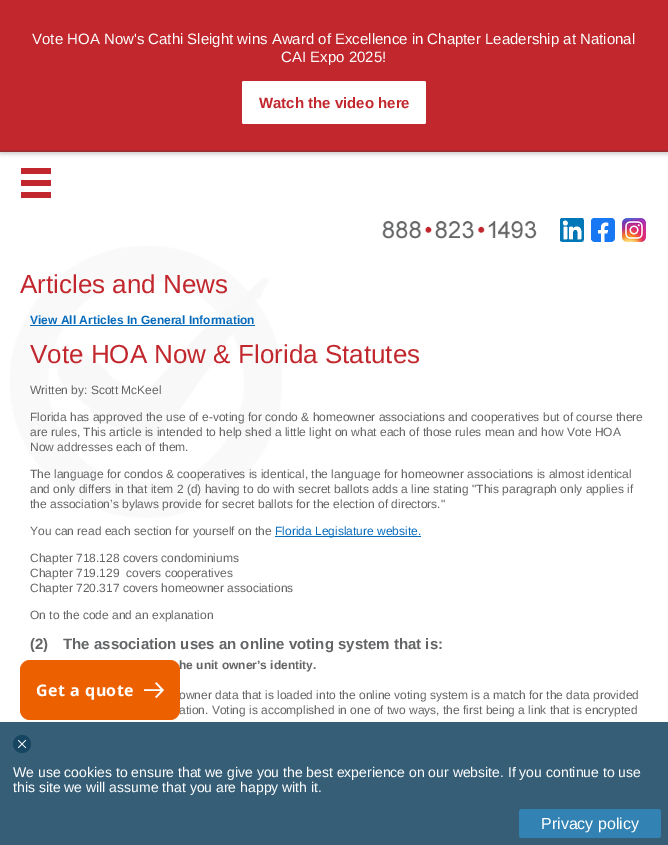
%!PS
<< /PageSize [668 845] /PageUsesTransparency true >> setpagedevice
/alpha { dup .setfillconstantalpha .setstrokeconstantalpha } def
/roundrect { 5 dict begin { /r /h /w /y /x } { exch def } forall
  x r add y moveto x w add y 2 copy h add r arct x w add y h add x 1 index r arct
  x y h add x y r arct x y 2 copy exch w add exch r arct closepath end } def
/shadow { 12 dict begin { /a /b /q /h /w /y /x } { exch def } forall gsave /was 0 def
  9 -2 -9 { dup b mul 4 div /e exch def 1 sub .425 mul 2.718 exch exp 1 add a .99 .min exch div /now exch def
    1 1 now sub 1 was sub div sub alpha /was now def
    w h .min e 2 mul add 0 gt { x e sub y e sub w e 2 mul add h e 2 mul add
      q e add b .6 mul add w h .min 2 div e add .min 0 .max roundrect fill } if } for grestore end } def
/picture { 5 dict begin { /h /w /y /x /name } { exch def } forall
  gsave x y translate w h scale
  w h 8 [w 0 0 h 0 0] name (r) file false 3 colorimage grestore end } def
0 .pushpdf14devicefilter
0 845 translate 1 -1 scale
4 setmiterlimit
1 setgray
0 0 668 845 rectfill
0 setgray
0 2 668 152 0 2 0.2 shadow
0.757 0.153 0.176 setrgbcolor
0 0 668 150 rectfill
0.639 0.18 0.196 setrgbcolor
0 150 668 2 rectfill
/LiberationSans-Regular [15 0 0 -15 0 0] selectfont
1 setgray
32 44 moveto (Vote HOA Now's Cathi Sleight wins Award of Excellence in Chapter Leadership at National) show
281 62 moveto (CAI Expo 2025!) show
242 81 184 43 2 roundrect fill
/LiberationSans-Bold [15 0 0 -15 0 0] selectfont
0.757 0.153 0.176 setrgbcolor
259 108 moveto (Watch the video here) show
(img1.rgb) 21 168 30 30 picture
(img2.rgb) 560 218 24 24 picture
(img3.rgb) 591 218 24 24 picture
(img4.rgb) 622 218 24 24 picture
(img5.rgb) 382 221 155 18 picture
(img6.rgb) 10 246 272 272 picture
/LiberationSans-Regular [26 0 0 -26 0 0] selectfont
20 293 moveto (Articles and News) show
/LiberationSans-Bold [12 0 0 -12 0 0] selectfont
0.027 0.42 0.737 setrgbcolor
30 324 moveto (View All Articles In General Information) show
30 325 225 1 rectfill
/LiberationSans-Regular [26 0 0 -26 0 0] selectfont
0.757 0.153 0.176 setrgbcolor
30 363 moveto (Vote HOA Now & Florida Statutes) show
/LiberationSans-Regular [12 0 0 -12 0 0] selectfont
0.388 0.392 0.4 setrgbcolor
30 394 moveto (Written by: Scott McKeel) show
30 421 moveto (Florida has approved the use of e-voting for condo & homeowner associations and cooperatives but of course there) show
30 436 moveto (are rules, This article is intended to help shed a little light on what each of those rules mean and how Vote HOA) show
30 451 moveto (Now addresses each of them.) show
30 478 moveto (The language for condos & cooperatives is identical, the language for homeowner associations is almost identical) show
30 493 moveto (and only differs in that item 2 \(d\) having to do with secret ballots adds a line stating "This paragraph only applies if) show
30 508 moveto (the association’s bylaws provide for secret ballots for the election of directors.") show
30 535 moveto (You can read each section for yourself on the) show
0.027 0.42 0.737 setrgbcolor
275 536 146 1 rectfill
275 535 moveto (Florida Legislature website.) show
0.388 0.392 0.4 setrgbcolor
30 562 moveto (Chapter 718.128 covers condominiums) show
30 577 moveto (Chapter 719.129  covers cooperatives) show
30 592 moveto (Chapter 720.317 covers homeowner associations) show
30 619 moveto (On to the code and an explanation) show
/LiberationSans-Bold [15 0 0 -15 0 0] selectfont
30 649 moveto (\(2\)) show
63 649 moveto (The association uses an online voting system that is:) show
/LiberationSans-Bold [12 0 0 -12 0 0] selectfont
179 669 moveto (he unit owner’s identity.) show
/LiberationSans-Regular [12 0 0 -12 0 0] selectfont
179 699 moveto (owner data that is loaded into the online voting system is a match for the data provided) show
179 714 moveto (ation. Voting is accomplished in one of two ways, the first being a link that is encrypted) show
0.929 0.376 0 setrgbcolor
20 660 160 60 10 roundrect fill
/NotoSans-Bold [16 0 0 -16 0 0] selectfont
1 setgray
36 696 moveto 0.5 0 (Get a quote) ashow
(img7.rgb) 144 682 20 16 picture
0.212 0.373 0.467 setrgbcolor
0 722 668 123 rectfill
0.086 0.275 0.384 setrgbcolor
newpath 22 744 9 0 360 arc closepath fill
(img8.rgb) 17 739 10 10 picture
/LiberationSans-Regular [14 0 0 -14 0 0] selectfont
1 setgray
13 777 moveto (We use cookies to ensure that we give you the best experience on our website. If you continue to use) show
13 792 moveto (this site we will assume that you are happy with it.) show
0.196 0.514 0.702 setrgbcolor
519 809 142 29 3 roundrect fill
/LiberationSans-Regular [16 0 0 -16 0 0] selectfont
1 setgray
541 829 moveto (Privacy policy) show
.poppdf14devicefilter showpage
